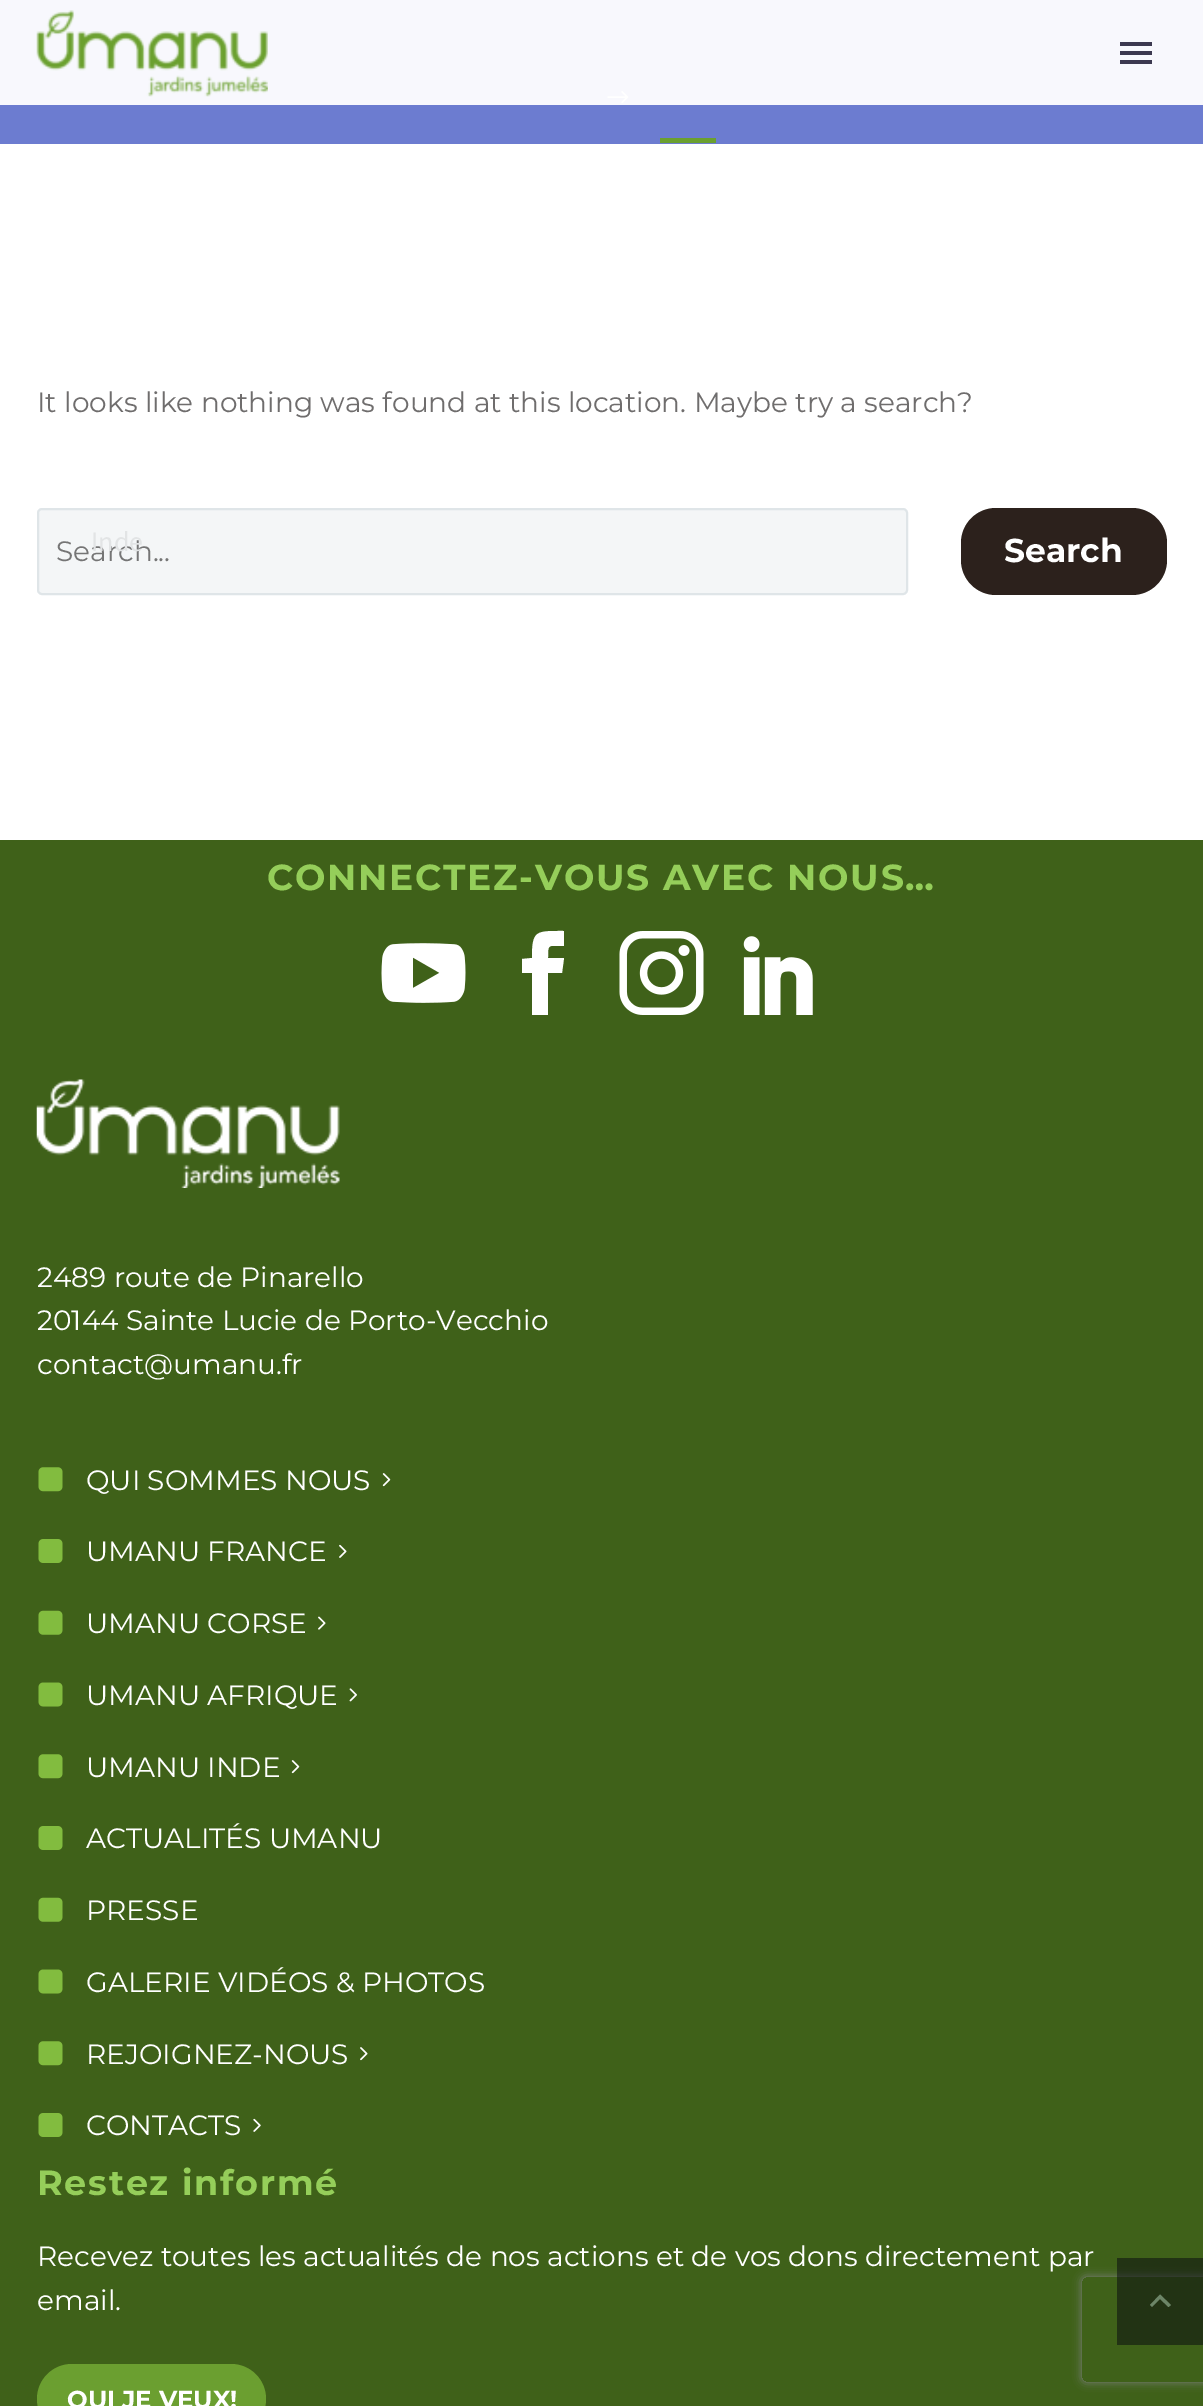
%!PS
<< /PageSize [1203 2406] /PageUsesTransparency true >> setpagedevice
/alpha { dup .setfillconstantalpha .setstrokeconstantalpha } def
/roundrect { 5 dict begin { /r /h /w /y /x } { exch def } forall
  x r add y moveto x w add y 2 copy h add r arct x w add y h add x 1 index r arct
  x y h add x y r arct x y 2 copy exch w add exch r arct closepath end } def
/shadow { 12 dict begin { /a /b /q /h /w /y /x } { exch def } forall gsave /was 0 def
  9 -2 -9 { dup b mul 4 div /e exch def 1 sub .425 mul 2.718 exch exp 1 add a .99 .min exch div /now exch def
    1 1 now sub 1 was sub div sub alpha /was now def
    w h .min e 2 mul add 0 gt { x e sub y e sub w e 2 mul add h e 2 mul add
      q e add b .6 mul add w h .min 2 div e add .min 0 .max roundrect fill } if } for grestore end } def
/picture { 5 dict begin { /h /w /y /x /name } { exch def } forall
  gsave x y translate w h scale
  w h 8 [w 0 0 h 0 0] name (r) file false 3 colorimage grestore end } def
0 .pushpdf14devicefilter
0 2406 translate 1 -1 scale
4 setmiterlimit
0.247 0.38 0.098 setrgbcolor
0 0 1203 2406 rectfill
0.424 0.486 0.816 setrgbcolor
0 0 1203 144 rectfill
(img1.rgb) 607 91 22 13 picture
0.42 0.627 0.184 setrgbcolor
660 138 56 5 rectfill
1 setgray
0 144 1203 696 rectfill
/Montserrat-Regular [28 0 0 -28 0 0] selectfont
0.435 0.427 0.427 setrgbcolor
37 412 moveto (It looks like nothing was found at this location. Maybe try a search?) show
0.957 0.965 0.969 setrgbcolor
38 509 869 85 4 roundrect gsave fill grestore
0.875 0.898 0.91 setrgbcolor
2 setlinewidth
stroke
0.459 setgray
56 561 moveto (Search...) show
0.173 0.129 0.11 setrgbcolor
961 508 206 87 35 roundrect fill
/Montserrat-Bold [33 0 0 -33 0 0] selectfont
1 setgray
1004 562 moveto (Search) show
0.95 alpha
0 0 1203 105 rectfill
1 alpha
(img2.rgb) 36 10 232 87 picture
0.235 0.224 0.314 setrgbcolor
1120 42 32 4 rectfill
1120 51 32 4 rectfill
1120 60 32 4 rectfill
/SourceSansPro-Regular [28 0 0 -28 0 0] selectfont
0.886 0.894 0.898 setrgbcolor
91 551 moveto (Inde) show
/Montserrat-Bold [36.1 0 0 -36.1 0 0] selectfont
0.584 0.808 0.353 setrgbcolor
267 890 moveto 1.8 0 (CONNECTEZ-VOUS AVEC NOUS…) ashow
(img3.rgb) 381 943 85 60 picture
1 setgray
newpath 532 1015 moveto 548 1015 lineto 548 973 lineto 562 973 lineto 564 958 lineto 548 958 lineto 548 943 548 946 564 946 curveto 564 931 lineto 536 931 532 930 532 958 curveto 522 959 lineto 522 973 lineto 532 973 lineto closepath fill
(img4.rgb) 619 931 85 84 picture
(img5.rgb) 743 936 70 79 picture
(img6.rgb) 36 1079 304 109 picture
/Montserrat-Regular [28 0 0 -28 0 0] selectfont
37 1287 moveto (2489 route de Pinarello) show
37 1330 moveto (20144 Sainte Lucie de Porto-Vecchio) show
37 1374 moveto (contact@umanu.fr) show
(img7.rgb) 38 1467 25 25 picture
86 1490 moveto (QUI SOMMES NOUS) show
(img8.rgb) 382 1473 9 14 picture
(img9.rgb) 38 1539 25 24 picture
86 1561 moveto (UMANU FRANCE) show
(img10.rgb) 339 1544 8 14 picture
(img11.rgb) 38 1610 25 25 picture
86 1633 moveto (UMANU CORSE) show
(img12.rgb) 318 1616 8 14 picture
(img13.rgb) 38 1682 25 25 picture
86 1705 moveto (UMANU AFRIQUE) show
(img14.rgb) 349 1688 8 14 picture
(img7.rgb) 38 1754 25 25 picture
86 1777 moveto (UMANU INDE) show
(img8.rgb) 291 1760 9 14 picture
(img9.rgb) 38 1826 25 24 picture
86 1848 moveto (ACTUALITÉS UMANU) show
(img11.rgb) 38 1897 25 25 picture
86 1920 moveto (PRESSE) show
(img13.rgb) 38 1969 25 25 picture
86 1992 moveto (GALERIE VIDÉOS & PHOTOS) show
(img7.rgb) 38 2041 25 25 picture
86 2064 moveto (REJOIGNEZ-NOUS) show
(img15.rgb) 360 2047 8 14 picture
(img9.rgb) 38 2113 25 24 picture
86 2135 moveto (CONTACTS) show
(img16.rgb) 253 2118 8 14 picture
/Montserrat-Bold [35 0 0 -35 0 0] selectfont
0.584 0.808 0.353 setrgbcolor
37 2195 moveto 1.75 0 (Restez informé) ashow
gsave
newpath 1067 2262 moveto 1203 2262 lineto 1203 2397 lineto 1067 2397 lineto closepath 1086 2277 moveto 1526 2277 lineto 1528 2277 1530 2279 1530 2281 curveto 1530 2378 lineto 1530 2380 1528 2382 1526 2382 curveto 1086 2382 lineto 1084 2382 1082 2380 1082 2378 curveto 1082 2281 lineto 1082 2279 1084 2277 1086 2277 curveto closepath eoclip newpath
0.502 setgray
1082 2277 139 105 4 4.5 1 shadow
grestore
/Montserrat-Regular [28 0 0 -28 0 0] selectfont
1 setgray
37 2266 moveto (Recevez toutes les actualités de nos actions et de vos dons directement par) show
37 2310 moveto (email.) show
0.42 0.624 0.188 setrgbcolor
37 2364 229 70 35 roundrect fill
/Montserrat-Bold [24.5 0 0 -24.5 0 0] selectfont
1 setgray
67 2408 moveto (OUI JE VEUX!) show
0.5 alpha
0.024 0.024 0.059 setrgbcolor
1117 2258 86 87 rectfill
1 alpha
0.424 0.522 0.404 setrgbcolor
newpath 1152 2307 moveto 1160 2299 lineto 1168.5 2307 lineto 1171 2305 lineto 1160 2294.5 lineto 1150 2305 lineto closepath fill
.poppdf14devicefilter showpage
